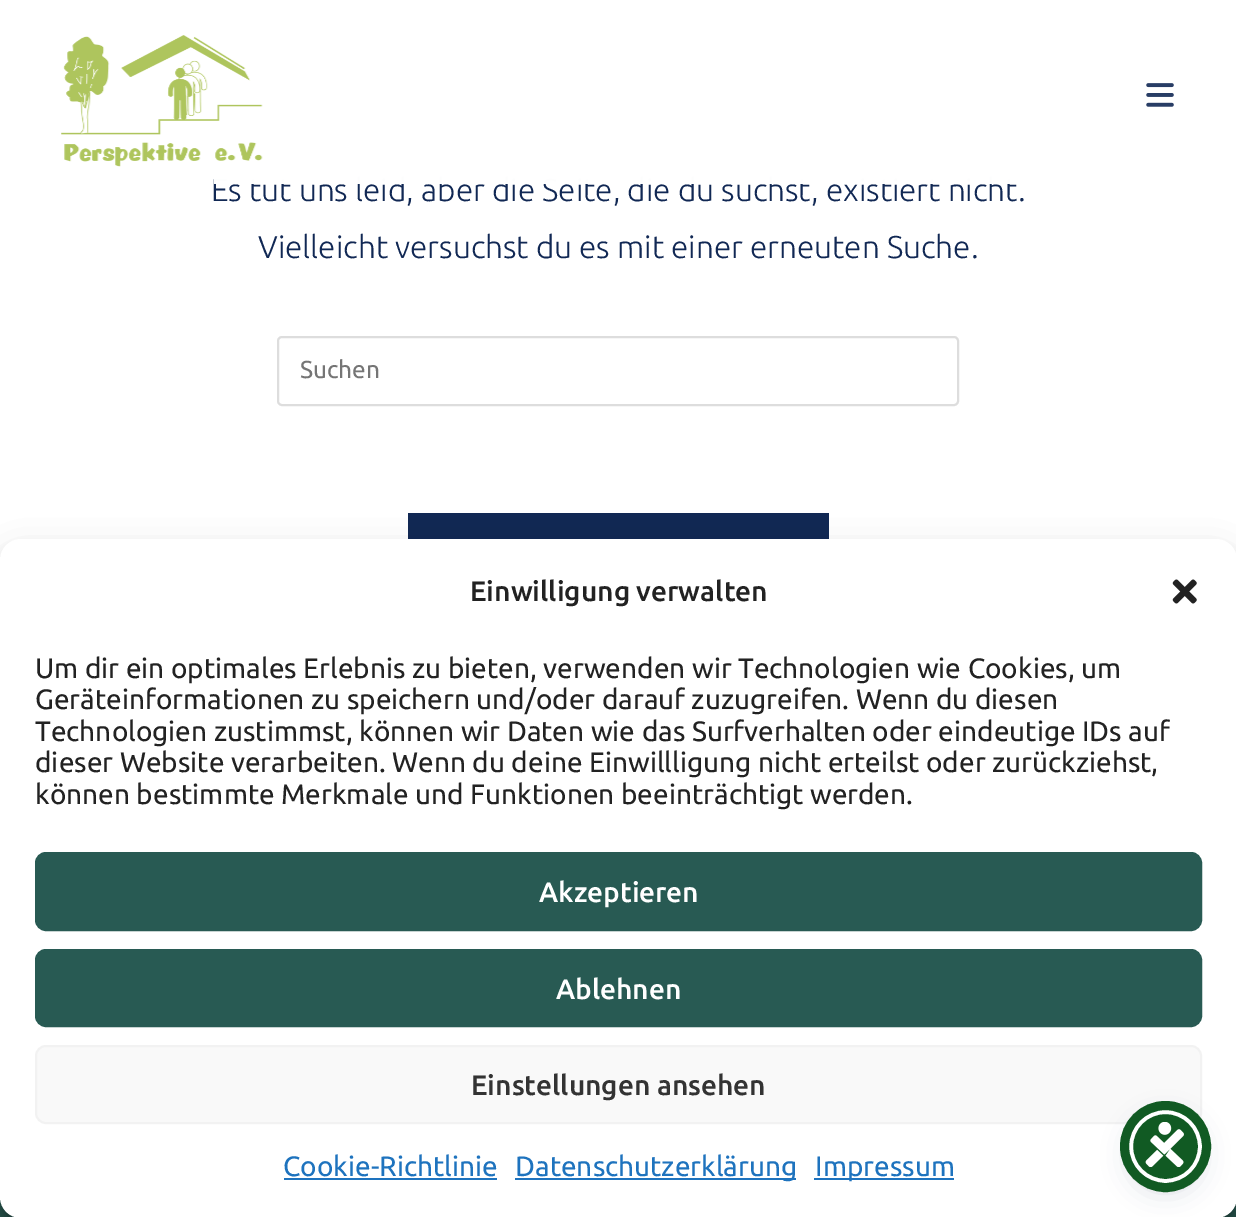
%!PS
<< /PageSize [1236 1217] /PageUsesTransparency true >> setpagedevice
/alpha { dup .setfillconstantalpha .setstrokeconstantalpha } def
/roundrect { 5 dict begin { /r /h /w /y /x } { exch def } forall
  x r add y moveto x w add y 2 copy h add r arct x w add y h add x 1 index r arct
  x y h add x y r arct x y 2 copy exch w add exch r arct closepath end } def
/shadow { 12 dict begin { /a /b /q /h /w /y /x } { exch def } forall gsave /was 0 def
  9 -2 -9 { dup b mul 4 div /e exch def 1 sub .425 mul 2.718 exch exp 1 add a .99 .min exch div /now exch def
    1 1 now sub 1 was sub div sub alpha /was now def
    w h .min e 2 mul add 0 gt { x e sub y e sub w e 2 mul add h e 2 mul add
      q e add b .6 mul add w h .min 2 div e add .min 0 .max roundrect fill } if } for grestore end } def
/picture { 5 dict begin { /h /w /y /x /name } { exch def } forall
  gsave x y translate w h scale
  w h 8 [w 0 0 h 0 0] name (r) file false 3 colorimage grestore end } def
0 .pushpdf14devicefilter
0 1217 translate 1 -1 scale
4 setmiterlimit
1 setgray
0 0 1236 1217 rectfill
/Ubuntu-Light [31.5 0 0 -31.5 0 0] selectfont
0.067 0.157 0.329 setrgbcolor
211 201 moveto (Es tut uns leid, aber die Seite, die du suchst, existiert nicht.) show
0.9 alpha
1 setgray
214 176 797 8 rectfill
214 176 797 8 rectfill
1 alpha
(img1.rgb) 61 35 202 132 picture
(img2.rgb) 1146 83 28 24 picture
0.067 0.157 0.329 setrgbcolor
258 258 moveto (Vielleicht versuchst du es mit einer erneuten Suche.) show
0.867 setgray
2 setlinewidth
278 337 680 68 4 roundrect stroke
/Ubuntu-Regular [24.5 0 0 -24.5 0 0] selectfont
0.459 setgray
300 378 moveto (Suchen) show
0.067 0.157 0.329 setrgbcolor
408 513 421 26 rectfill
0.157 0.353 0.325 setrgbcolor
0 1197 1236 20 rectfill
0 setgray
0 550 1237 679 21 5 0.23 shadow
0 557 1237 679 21 17.5 0.19 shadow
1 setgray
0 539 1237 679 21 roundrect fill
/Ubuntu-Medium [28 0 0 -28 0 0] selectfont
0.133 setgray
470 601 moveto (Einwilligung verwalten) show
(img3.rgb) 1172 579 25 25 picture
/Ubuntu-Regular [28 0 0 -28 0 0] selectfont
35 678 moveto (Um dir ein optimales Erlebnis zu bieten, verwenden wir Technologien wie Cookies, um) show
35 709 moveto (Geräteinformationen zu speichern und/oder darauf zuzugreifen. Wenn du diesen) show
35 741 moveto (Technologien zustimmst, können wir Daten wie das Surfverhalten oder eindeutige IDs auf) show
35 772 moveto (dieser Website verarbeiten. Wenn du deine Einwillligung nicht erteilst oder zurückziehst,) show
35 804 moveto (können bestimmte Merkmale und Funktionen beeinträchtigt werden.) show
0.157 0.353 0.325 setrgbcolor
36 853 1165 77 10 roundrect gsave fill grestore
stroke
/Ubuntu-Medium [28 0 0 -28 0 0] selectfont
1 setgray
539 902 moveto (Akzeptieren) show
0.157 0.353 0.325 setrgbcolor
36 950 1165 76 10 roundrect gsave fill grestore
stroke
1 setgray
556 999 moveto (Ablehnen) show
0.976 setgray
36 1046 1165 77 10 roundrect gsave fill grestore
0.949 setgray
stroke
0.2 setgray
471 1095 moveto (Einstellungen ansehen) show
/Ubuntu-Regular [28 0 0 -28 0 0] selectfont
0.118 0.451 0.745 setrgbcolor
283 1176 moveto (Cookie-Richtlinie) show
284 1178 213 2 rectfill
515 1178 281 2 rectfill
515 1176 moveto (Datenschutzerklärung) show
814 1178 140 2 rectfill
815 1176 moveto (Impressum) show
0.365 0.392 0.58 setrgbcolor
1129 1113 73 74 36.5 3.5 0.2 shadow
0.145 0.173 0.38 setrgbcolor
1129 1118 73 74 36.5 13 0.15 shadow
0.067 0.353 0.137 setrgbcolor
newpath 1165.5 1146.5 34.5 0 360 arc closepath gsave fill grestore
1 setgray
4 setlinewidth
stroke
0.067 0.353 0.137 setrgbcolor
9 setlinewidth
newpath 1165.5 1146.5 41 0 360 arc closepath stroke
(img4.rgb) 1145 1122 39 45 picture
.poppdf14devicefilter showpage
